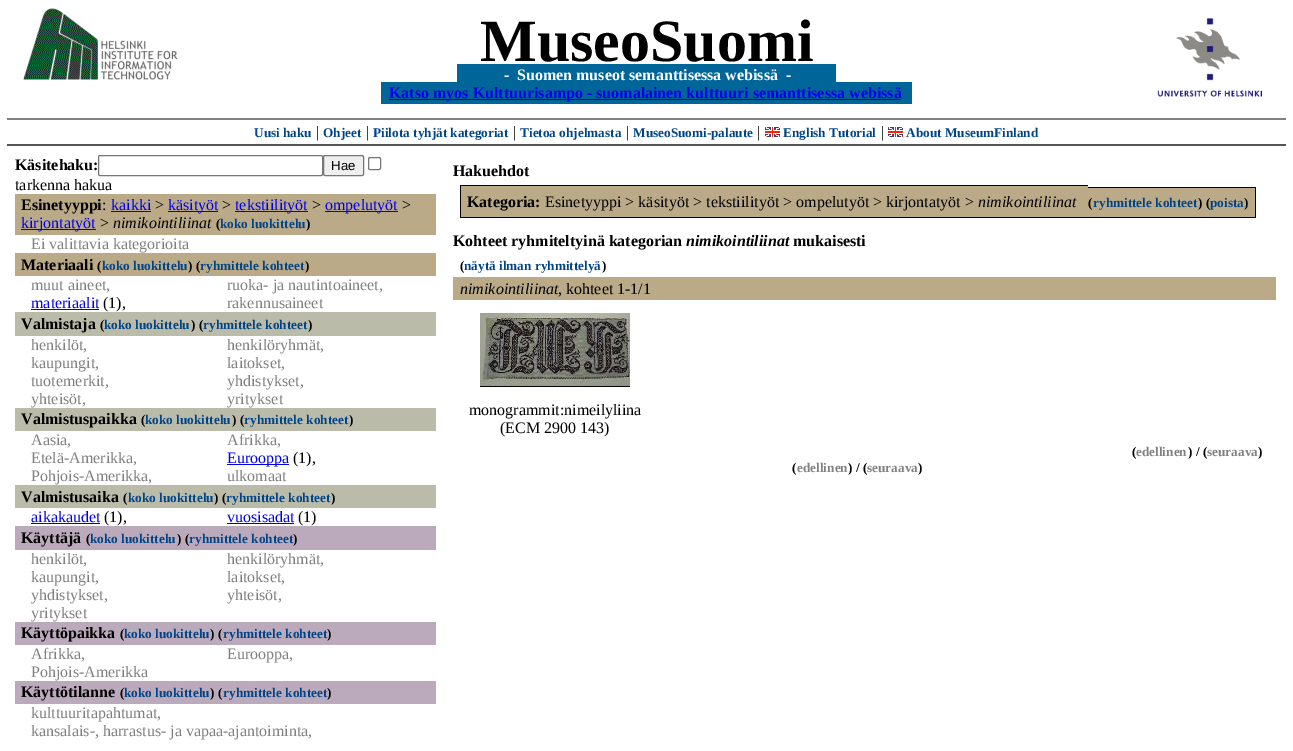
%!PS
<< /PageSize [1293 751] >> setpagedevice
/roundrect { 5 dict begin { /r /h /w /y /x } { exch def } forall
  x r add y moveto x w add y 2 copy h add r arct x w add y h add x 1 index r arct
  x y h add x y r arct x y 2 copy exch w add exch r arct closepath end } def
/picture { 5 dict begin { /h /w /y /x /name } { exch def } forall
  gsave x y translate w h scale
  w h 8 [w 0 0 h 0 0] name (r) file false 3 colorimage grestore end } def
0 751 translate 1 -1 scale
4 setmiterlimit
1 setgray
0 0 1293 751 rectfill
(img1.rgb) 23 8 155 72 picture
/LiberationSerif-Bold [60 0 0 -60 0 0] selectfont
0 setgray
480 61 moveto (MuseoSuomi) show
(img2.rgb) 1157 18 105 79 picture
0 0.4 0.6 setrgbcolor
457 64 379 18 rectfill
/LiberationSerif-Bold [16 0 0 -16 0 0] selectfont
1 setgray
504 80 moveto (-) show
517 80 moveto (Suomen museot semanttisessa webissä) show
786 80 moveto (-) show
0 0.4 0.6 setrgbcolor
381 82 531 22 rectfill
0 0 0.933 setrgbcolor
389 99 512 1 rectfill
389 98 moveto (Katso myos Kulttuurisampo - suomalainen kulttuuri semanttisessa webissä) show
0.502 setgray
7 118 1279 2 rectfill
0.333 setgray
7 144 1279 2 rectfill
/LiberationSerif-Bold [13.25 0 0 -13.25 0 0] selectfont
0 0.267 0.533 setrgbcolor
254 137 moveto (Uusi haku) show
/LiberationSerif-Regular [16 0 0 -16 0 0] selectfont
0 setgray
316 137 moveto (|) show
/LiberationSerif-Bold [13.25 0 0 -13.25 0 0] selectfont
0 0.267 0.533 setrgbcolor
323 137 moveto (Ohjeet) show
/LiberationSerif-Regular [16 0 0 -16 0 0] selectfont
0 setgray
366 137 moveto (|) show
/LiberationSerif-Bold [13.25 0 0 -13.25 0 0] selectfont
0 0.267 0.533 setrgbcolor
373 137 moveto (Piilota tyhjät kategoriat) show
/LiberationSerif-Regular [16 0 0 -16 0 0] selectfont
0 setgray
513 137 moveto (|) show
/LiberationSerif-Bold [13.25 0 0 -13.25 0 0] selectfont
0 0.267 0.533 setrgbcolor
520 137 moveto (Tietoa ohjelmasta) show
/LiberationSerif-Regular [16 0 0 -16 0 0] selectfont
0 setgray
626 137 moveto (|) show
/LiberationSerif-Bold [13.25 0 0 -13.25 0 0] selectfont
0 0.267 0.533 setrgbcolor
633 137 moveto (MuseoSuomi-palaute) show
/LiberationSerif-Regular [16 0 0 -16 0 0] selectfont
0 setgray
757 137 moveto (|) show
(img3.rgb) 765 127 15 10 picture
/LiberationSerif-Bold [13.25 0 0 -13.25 0 0] selectfont
0 0.267 0.533 setrgbcolor
783 137 moveto (English Tutorial) show
/LiberationSerif-Regular [16 0 0 -16 0 0] selectfont
0 setgray
881 137 moveto (|) show
(img3.rgb) 888 127 15 10 picture
/LiberationSerif-Bold [13.25 0 0 -13.25 0 0] selectfont
0 0.267 0.533 setrgbcolor
906 137 moveto (About MuseumFinland) show
/LiberationSerif-Bold [16 0 0 -16 0 0] selectfont
0 setgray
15 170 moveto (Käsitehaku:) show
0.463 setgray
98.5 155.5 224 20 1.5 roundrect stroke
0.937 setgray
323.5 155.5 40 20 1.5 roundrect gsave fill grestore
0.463 setgray
stroke
/LiberationSans-Regular [13.25 0 0 -13.25 0 0] selectfont
0 setgray
331 170 moveto (Hae) show
0.463 setgray
368.5 157.5 12 12 1.5 roundrect stroke
/LiberationSerif-Regular [16 0 0 -16 0 0] selectfont
0 setgray
15 190 moveto (tarkenna hakua) show
0.733 0.667 0.533 setrgbcolor
15 194 421 41 rectfill
/LiberationSerif-Bold [16 0 0 -16 0 0] selectfont
0 setgray
21 210 moveto (Esinetyyppi) show
/LiberationSerif-Regular [16 0 0 -16 0 0] selectfont
102 210 moveto (:) show
0 0 0.933 setrgbcolor
111 210 moveto (kaikki) show
111 211 40 1 rectfill
0 setgray
155 210 moveto (>) show
0 0 0.933 setrgbcolor
168 211 50 1 rectfill
168 210 moveto (käsityöt) show
0 setgray
222 210 moveto (>) show
0 0 0.933 setrgbcolor
235 211 73 1 rectfill
235 210 moveto (tekstiilityöt) show
0 setgray
312 210 moveto (>) show
0 0 0.933 setrgbcolor
325 211 73 1 rectfill
325 210 moveto (ompelutyöt) show
0 setgray
402 210 moveto (>) show
0 0 0.933 setrgbcolor
21 229 75 1 rectfill
21 228 moveto (kirjontatyöt) show
0 setgray
100 228 moveto (>) show
/LiberationSerif-Italic [16 0 0 -16 0 0] selectfont
113 228 moveto (nimikointiliinat) show
/LiberationSerif-Bold [13.25 0 0 -13.25 0 0] selectfont
216 228 moveto (\() show
0 0.267 0.533 setrgbcolor
220 228 moveto (koko luokittelu) show
0 setgray
306 228 moveto (\)) show
/LiberationSerif-Regular [16 0 0 -16 0 0] selectfont
0.502 setgray
31 249 moveto (Ei valittavia kategorioita) show
0.733 0.667 0.533 setrgbcolor
15 253 421 23 rectfill
/LiberationSerif-Bold [16 0 0 -16 0 0] selectfont
0 setgray
21 270 moveto (Materiaali) show
/LiberationSerif-Bold [13.25 0 0 -13.25 0 0] selectfont
97 270 moveto (\() show
0 0.267 0.533 setrgbcolor
102 270 moveto (koko luokittelu) show
0 setgray
188 270 moveto (\) \() show
0 0.267 0.533 setrgbcolor
200 270 moveto (ryhmittele kohteet) show
0 setgray
305 270 moveto (\)) show
/LiberationSerif-Regular [16 0 0 -16 0 0] selectfont
0.502 setgray
31 290 moveto (muut aineet,) show
227 290 moveto (ruoka- ja nautintoaineet,) show
0 0 0.933 setrgbcolor
31 308 moveto (materiaalit) show
31 309 68 1 rectfill
0 setgray
103 308 moveto (\(1\),) show
0.502 setgray
227 308 moveto (rakennusaineet) show
0.733 0.733 0.667 setrgbcolor
15 312 421 24 rectfill
/LiberationSerif-Bold [16 0 0 -16 0 0] selectfont
0 setgray
21 329 moveto (Valmistaja) show
/LiberationSerif-Bold [13.25 0 0 -13.25 0 0] selectfont
100 329 moveto (\() show
0 0.267 0.533 setrgbcolor
104 329 moveto (koko luokittelu) show
0 setgray
191 329 moveto (\) \() show
0 0.267 0.533 setrgbcolor
203 329 moveto (ryhmittele kohteet) show
0 setgray
308 329 moveto (\)) show
/LiberationSerif-Regular [16 0 0 -16 0 0] selectfont
0.502 setgray
31 350 moveto (henkilöt,) show
227 350 moveto (henkilöryhmät,) show
31 368 moveto (kaupungit,) show
227 368 moveto (laitokset,) show
31 386 moveto (tuotemerkit,) show
227 386 moveto (yhdistykset,) show
31 404 moveto (yhteisöt,) show
227 404 moveto (yritykset) show
0.733 0.733 0.667 setrgbcolor
15 408 421 23 rectfill
/LiberationSerif-Bold [16 0 0 -16 0 0] selectfont
0 setgray
21 424 moveto (Valmistuspaikka) show
/LiberationSerif-Bold [13.25 0 0 -13.25 0 0] selectfont
141 424 moveto (\() show
0 0.267 0.533 setrgbcolor
145 424 moveto (koko luokittelu) show
0 setgray
232 424 moveto (\) \() show
0 0.267 0.533 setrgbcolor
244 424 moveto (ryhmittele kohteet) show
0 setgray
349 424 moveto (\)) show
/LiberationSerif-Regular [16 0 0 -16 0 0] selectfont
0.502 setgray
31 445 moveto (Aasia,) show
227 445 moveto (Afrikka,) show
31 463 moveto (Etelä-Amerikka,) show
0 0 0.933 setrgbcolor
227 464 62 1 rectfill
227 463 moveto (Eurooppa) show
0 setgray
293 463 moveto (\(1\),) show
0.502 setgray
31 481 moveto (Pohjois-Amerikka,) show
227 481 moveto (ulkomaat) show
0.733 0.733 0.667 setrgbcolor
15 485 421 23 rectfill
/LiberationSerif-Bold [16 0 0 -16 0 0] selectfont
0 setgray
21 502 moveto (Valmistusaika) show
/LiberationSerif-Bold [13.25 0 0 -13.25 0 0] selectfont
123 502 moveto (\() show
0 0.267 0.533 setrgbcolor
128 502 moveto (koko luokittelu) show
0 setgray
214 502 moveto (\) \() show
0 0.267 0.533 setrgbcolor
226 502 moveto (ryhmittele kohteet) show
0 setgray
331 502 moveto (\)) show
/LiberationSerif-Regular [16 0 0 -16 0 0] selectfont
0 0 0.933 setrgbcolor
31 522 moveto (aikakaudet) show
31 523 69 1 rectfill
0 setgray
104 522 moveto (\(1\),) show
0 0 0.933 setrgbcolor
227 522 moveto (vuosisadat) show
227 523 67 1 rectfill
0 setgray
298 522 moveto (\(1\)) show
0.733 0.667 0.733 setrgbcolor
15 526 421 24 rectfill
/LiberationSerif-Bold [16 0 0 -16 0 0] selectfont
0 setgray
21 543 moveto (Käyttäjä) show
/LiberationSerif-Bold [13.25 0 0 -13.25 0 0] selectfont
86 543 moveto (\() show
0 0.267 0.533 setrgbcolor
90 543 moveto (koko luokittelu) show
0 setgray
177 543 moveto (\) \() show
0 0.267 0.533 setrgbcolor
189 543 moveto (ryhmittele kohteet) show
0 setgray
293 543 moveto (\)) show
/LiberationSerif-Regular [16 0 0 -16 0 0] selectfont
0.502 setgray
31 564 moveto (henkilöt,) show
227 564 moveto (henkilöryhmät,) show
31 582 moveto (kaupungit,) show
227 582 moveto (laitokset,) show
31 600 moveto (yhdistykset,) show
227 600 moveto (yhteisöt,) show
31 618 moveto (yritykset) show
0.733 0.667 0.733 setrgbcolor
15 622 421 23 rectfill
/LiberationSerif-Bold [16 0 0 -16 0 0] selectfont
0 setgray
21 638 moveto (Käyttöpaikka) show
/LiberationSerif-Bold [13.25 0 0 -13.25 0 0] selectfont
120 638 moveto (\() show
0 0.267 0.533 setrgbcolor
124 638 moveto (koko luokittelu) show
0 setgray
210 638 moveto (\) \() show
0 0.267 0.533 setrgbcolor
223 638 moveto (ryhmittele kohteet) show
0 setgray
327 638 moveto (\)) show
/LiberationSerif-Regular [16 0 0 -16 0 0] selectfont
0.502 setgray
31 659 moveto (Afrikka,) show
227 659 moveto (Eurooppa,) show
31 677 moveto (Pohjois-Amerikka) show
0.733 0.667 0.733 setrgbcolor
15 681 421 23 rectfill
/LiberationSerif-Bold [16 0 0 -16 0 0] selectfont
0 setgray
21 697 moveto (Käyttötilanne) show
/LiberationSerif-Bold [13.25 0 0 -13.25 0 0] selectfont
120 697 moveto (\() show
0 0.267 0.533 setrgbcolor
124 697 moveto (koko luokittelu) show
0 setgray
210 697 moveto (\) \() show
0 0.267 0.533 setrgbcolor
223 697 moveto (ryhmittele kohteet) show
0 setgray
327 697 moveto (\)) show
/LiberationSerif-Regular [16 0 0 -16 0 0] selectfont
0.502 setgray
31 718 moveto (kulttuuritapahtumat,) show
31 736 moveto (kansalais-, harrastus- ja vapaa-ajantoiminta,) show
/LiberationSerif-Bold [16 0 0 -16 0 0] selectfont
0 setgray
453 176 moveto (Hakuehdot) show
0.733 0.667 0.533 setrgbcolor
461 186 627 31 rectfill
0 setgray
467 207 moveto (Kategoria:) show
460 185 628 1 rectfill
460 217 628 1 rectfill
460 185 1 33 rectfill
/LiberationSerif-Regular [16 0 0 -16 0 0] selectfont
545 207 moveto (Esinetyyppi > käsityöt > tekstiilityöt > ompelutyöt > kirjontatyöt >) show
/LiberationSerif-Italic [16 0 0 -16 0 0] selectfont
978 207 moveto (nimikointiliinat) show
0.733 0.667 0.533 setrgbcolor
1088 187 5 31 rectfill
/LiberationSerif-Bold [13.25 0 0 -13.25 0 0] selectfont
0 setgray
1088 207 moveto (\() show
1088 187 110 1 rectfill
1088 217 110 1 rectfill
0.733 0.667 0.533 setrgbcolor
1093 188 105 29 rectfill
0 0.267 0.533 setrgbcolor
1093 207 moveto (ryhmittele kohteet) show
0.733 0.667 0.533 setrgbcolor
1198 187 12 31 rectfill
0 setgray
1198 187 58 1 rectfill
1198 217 46 1 rectfill
1198 207 moveto (\) \() show
0.733 0.667 0.533 setrgbcolor
1210 188 45 29 rectfill
0 0.267 0.533 setrgbcolor
1210 207 moveto (poista) show
0 setgray
1255 187 1 31 rectfill
1244 217 12 1 rectfill
1244 207 moveto (\)) show
/LiberationSerif-Bold [16 0 0 -16 0 0] selectfont
453 246 moveto (Kohteet ryhmiteltyinä kategorian) show
/LiberationSerif-BoldItalic [16 0 0 -16 0 0] selectfont
686 246 moveto (nimikointiliinat) show
/LiberationSerif-Bold [16 0 0 -16 0 0] selectfont
793 246 moveto (mukaisesti) show
/LiberationSerif-Bold [13.25 0 0 -13.25 0 0] selectfont
460 270 moveto (\() show
0 0.267 0.533 setrgbcolor
464 270 moveto (näytä ilman ryhmittelyä) show
0 setgray
602 270 moveto (\)) show
0.733 0.667 0.533 setrgbcolor
453 277 823 23 rectfill
/LiberationSerif-Italic [16 0 0 -16 0 0] selectfont
0 setgray
460 294 moveto (nimikointiliinat) show
/LiberationSerif-Regular [16 0 0 -16 0 0] selectfont
558 294 moveto (, kohteet 1-1/1) show
(img4.rgb) 480 313 150 74 picture
469 415 moveto (monogrammit:nimeilyliina) show
500 433 moveto (\(ECM 2900 143\)) show
/LiberationSerif-Bold [13.25 0 0 -13.25 0 0] selectfont
1132 456 moveto (\() show
0.502 setgray
1136 456 moveto (edellinen) show
0 setgray
1188 456 moveto (\) / \() show
0.502 setgray
1207 456 moveto (seuraava) show
0 setgray
1258 456 moveto (\)) show
792 472 moveto (\() show
0.502 setgray
797 472 moveto (edellinen) show
0 setgray
848 472 moveto (\) / \() show
0.502 setgray
867 472 moveto (seuraava) show
0 setgray
918 472 moveto (\)) show
showpage
